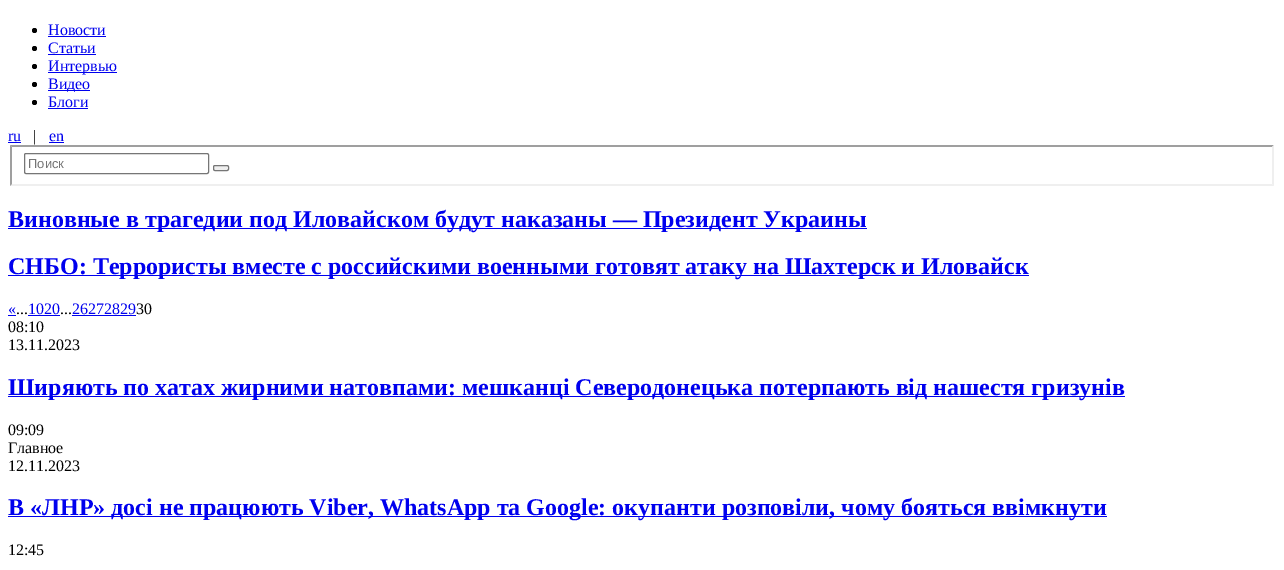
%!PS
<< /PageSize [1284 570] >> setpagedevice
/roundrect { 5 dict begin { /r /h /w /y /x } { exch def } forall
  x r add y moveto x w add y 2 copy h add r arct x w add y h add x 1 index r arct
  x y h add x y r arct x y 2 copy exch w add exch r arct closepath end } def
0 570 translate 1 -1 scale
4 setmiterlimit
1 setgray
0 0 1284 570 rectfill
0 setgray
newpath 34.5 30.5 2.5 0 360 arc closepath fill
/LiberationSerif-Regular [16 0 0 -16 0 0] selectfont
0 0 0.933 setrgbcolor
48 35 moveto (Новости) show
48 36 58 1 rectfill
0 setgray
newpath 34.5 48.5 2.5 0 360 arc closepath fill
0 0 0.933 setrgbcolor
48 53 moveto (Статьи) show
48 54 48 1 rectfill
0 setgray
newpath 34.5 66.5 2.5 0 360 arc closepath fill
0 0 0.933 setrgbcolor
48 72 69 1 rectfill
48 71 moveto (Интервью) show
0 setgray
newpath 34.5 84.5 2.5 0 360 arc closepath fill
0 0 0.933 setrgbcolor
48 90 42 1 rectfill
48 89 moveto (Видео) show
0 setgray
newpath 34.5 102.5 2.5 0 360 arc closepath fill
0 0 0.933 setrgbcolor
48 107 moveto (Блоги) show
48 108 40 1 rectfill
8 141 moveto (ru) show
8 142 13 1 rectfill
0 setgray
33 141 moveto (|) show
0 0 0.933 setrgbcolor
49 141 moveto (en) show
49 142 15 1 rectfill
0.624 setgray
newpath 10 145 moveto 1274 145 lineto 1272 147 lineto 12 147 lineto closepath fill
0.937 setgray
newpath 1274 145 moveto 1274 186 lineto 1272 184 lineto 1272 147 lineto closepath fill
newpath 1274 186 moveto 10 186 lineto 12 184 lineto 1272 184 lineto closepath fill
0.624 setgray
newpath 10 186 moveto 10 145 lineto 12 147 lineto 12 184 lineto closepath fill
0.463 setgray
24.5 153.5 184 20 1.5 roundrect stroke
/LiberationSans-Regular [13 0 0 -13 0 0] selectfont
0.459 setgray
28 168 moveto (Поиск) show
0.937 setgray
213.5 165.5 15 5 1.5 roundrect gsave fill grestore
0.463 setgray
stroke
0 0 0.933 setrgbcolor
8 228 859 1 rectfill
/LiberationSerif-Bold [24 0 0 -24 0 0] selectfont
8 227 moveto (Виновные в трагедии под Иловайском будут наказаны — Президент Украины) show
8 275 1021 1 rectfill
8 274 moveto (СНБО: Террористы вместе с российскими военными готовят атаку на Шахтерск и Иловайск) show
/LiberationSerif-Regular [16 0 0 -16 0 0] selectfont
8 314 moveto («) show
8 315 8 1 rectfill
0 setgray
16 314 moveto (...) show
0 0 0.933 setrgbcolor
28 314 moveto (1020) show
28 315 32 1 rectfill
0 setgray
60 314 moveto (...) show
0 0 0.933 setrgbcolor
72 314 moveto (26272829) show
72 315 64 1 rectfill
0 setgray
136 314 moveto (30) show
8 332 moveto (08:10) show
8 350 moveto (13.11.2023) show
0 0 0.933 setrgbcolor
8 396 1117 1 rectfill
/LiberationSerif-Bold [24 0 0 -24 0 0] selectfont
8 395 moveto (Ширяють по хатах жирними натовпами: мешканці Северодонецька потерпають від нашестя гризунів) show
/LiberationSerif-Regular [16 0 0 -16 0 0] selectfont
0 setgray
8 435 moveto (09:09) show
8 453 moveto (Главное) show
8 471 moveto (12.11.2023) show
0 0 0.933 setrgbcolor
8 516 1099 1 rectfill
/LiberationSerif-Bold [24 0 0 -24 0 0] selectfont
8 515 moveto (В «ЛНР» досі не працюють Viber, WhatsApp та Google: окупанти розповіли, чому бояться ввімкнути) show
/LiberationSerif-Regular [16 0 0 -16 0 0] selectfont
0 setgray
8 555 moveto (12:45) show
showpage
